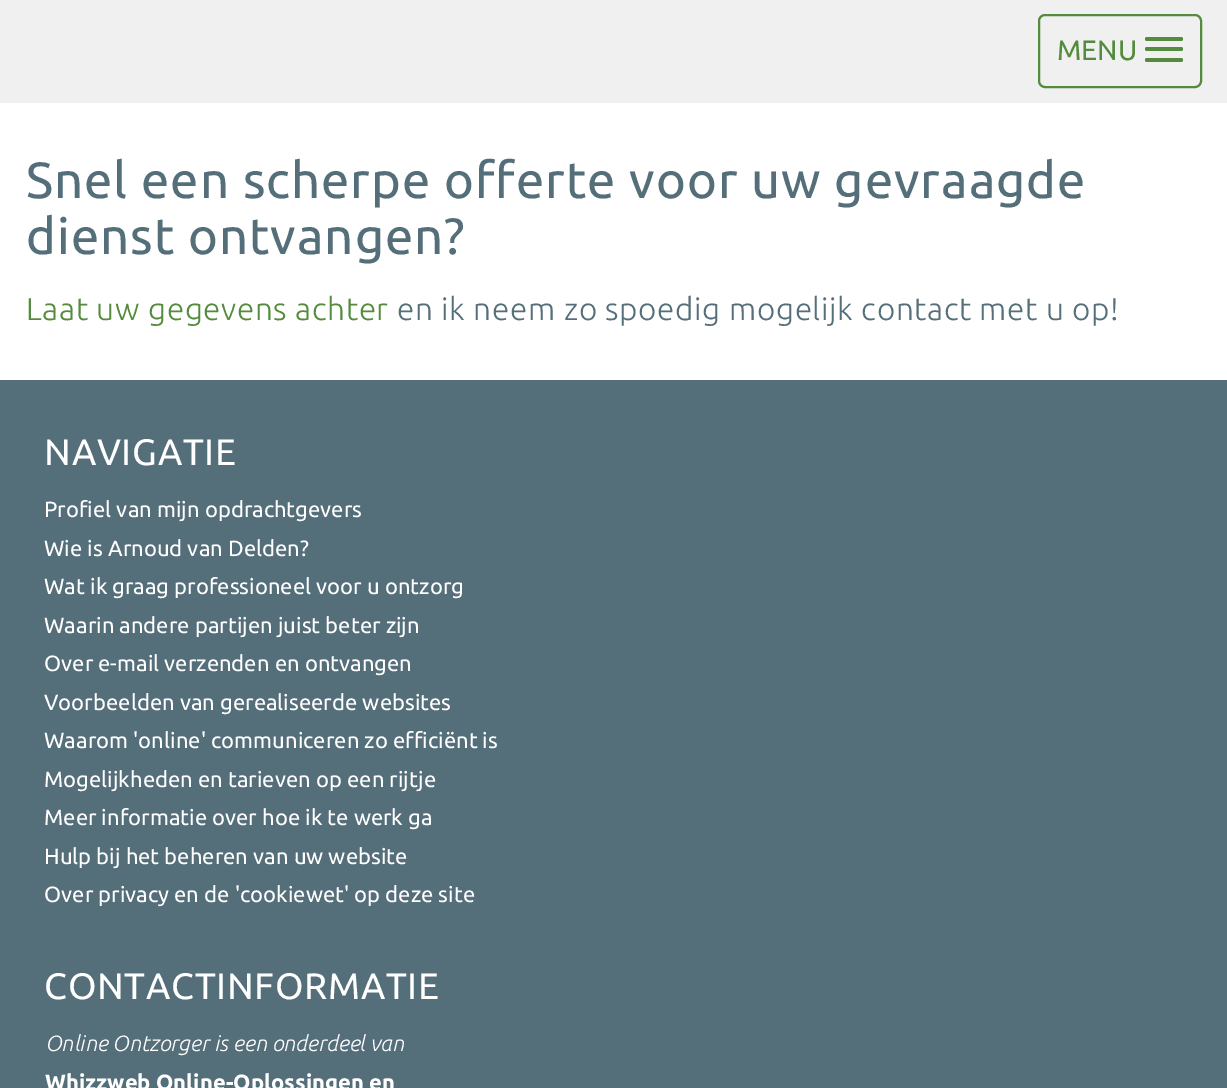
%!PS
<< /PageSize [1227 1088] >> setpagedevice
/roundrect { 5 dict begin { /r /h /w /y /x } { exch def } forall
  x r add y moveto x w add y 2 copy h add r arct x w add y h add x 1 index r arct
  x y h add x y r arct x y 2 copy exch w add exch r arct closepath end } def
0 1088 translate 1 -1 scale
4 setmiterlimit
1 setgray
0 0 1227 1088 rectfill
0.941 setgray
0 0 1227 103 rectfill
0.333 0.545 0.243 setrgbcolor
2 setlinewidth
1039 15 162 72 6 roundrect stroke
/Ubuntu-Regular [28 0 0 -28 0 0] selectfont
1057 60 moveto (MENU) show
1145 37 38 4 2 roundrect fill
1145 47 38 4 2 roundrect fill
1145 58 38 4 2 roundrect fill
/Ubuntu-Regular [50.75 0 0 -50.75 0 0] selectfont
0.329 0.431 0.478 setrgbcolor
26 198 moveto 1 0 (Snel een scherpe offerte voor uw gevraagde) ashow
26 254 moveto 1 0 (dienst ontvangen?) ashow
/Ubuntu-Light [31.5 0 0 -31.5 0 0] selectfont
0.333 0.545 0.243 setrgbcolor
26 320 moveto 0.65 0 (Laat uw gegevens achter) ashow
0.329 0.431 0.478 setrgbcolor
397 320 moveto 0.65 0 (en ik neem zo spoedig mogelijk contact met u op!) ashow
0 380 1227 708 rectfill
/Ubuntu-Regular [36.75 0 0 -36.75 0 0] selectfont
1 setgray
44 465 moveto 0.75 0 (NAVIGATIE) ashow
/Ubuntu-Regular [22.05 0 0 -22.05 0 0] selectfont
44 517 moveto (Profiel van mijn opdrachtgevers) show
44 556 moveto (Wie is Arnoud van Delden?) show
44 594 moveto (Wat ik graag professioneel voor u ontzorg) show
44 633 moveto (Waarin andere partijen juist beter zijn) show
44 671 moveto (Over e-mail verzenden en ontvangen) show
44 710 moveto (Voorbeelden van gerealiseerde websites) show
44 748 moveto (Waarom 'online' communiceren zo efficiënt is) show
44 787 moveto (Mogelijkheden en tarieven op een rijtje) show
44 825 moveto (Meer informatie over hoe ik te werk ga) show
44 864 moveto (Hulp bij het beheren van uw website) show
44 902 moveto (Over privacy en de 'cookiewet' op deze site) show
/Ubuntu-Regular [36.75 0 0 -36.75 0 0] selectfont
44 999 moveto 0.75 0 (CONTACTINFORMATIE) ashow
/Ubuntu-LightItalic [22.05 0 0 -22.05 0 0] selectfont
45 1051 moveto (Online Ontzorger is een onderdeel van) show
/Ubuntu-Bold [22.05 0 0 -22.05 0 0] selectfont
45 1090 moveto (Whizzweb Online-Oplossingen en) show
showpage
